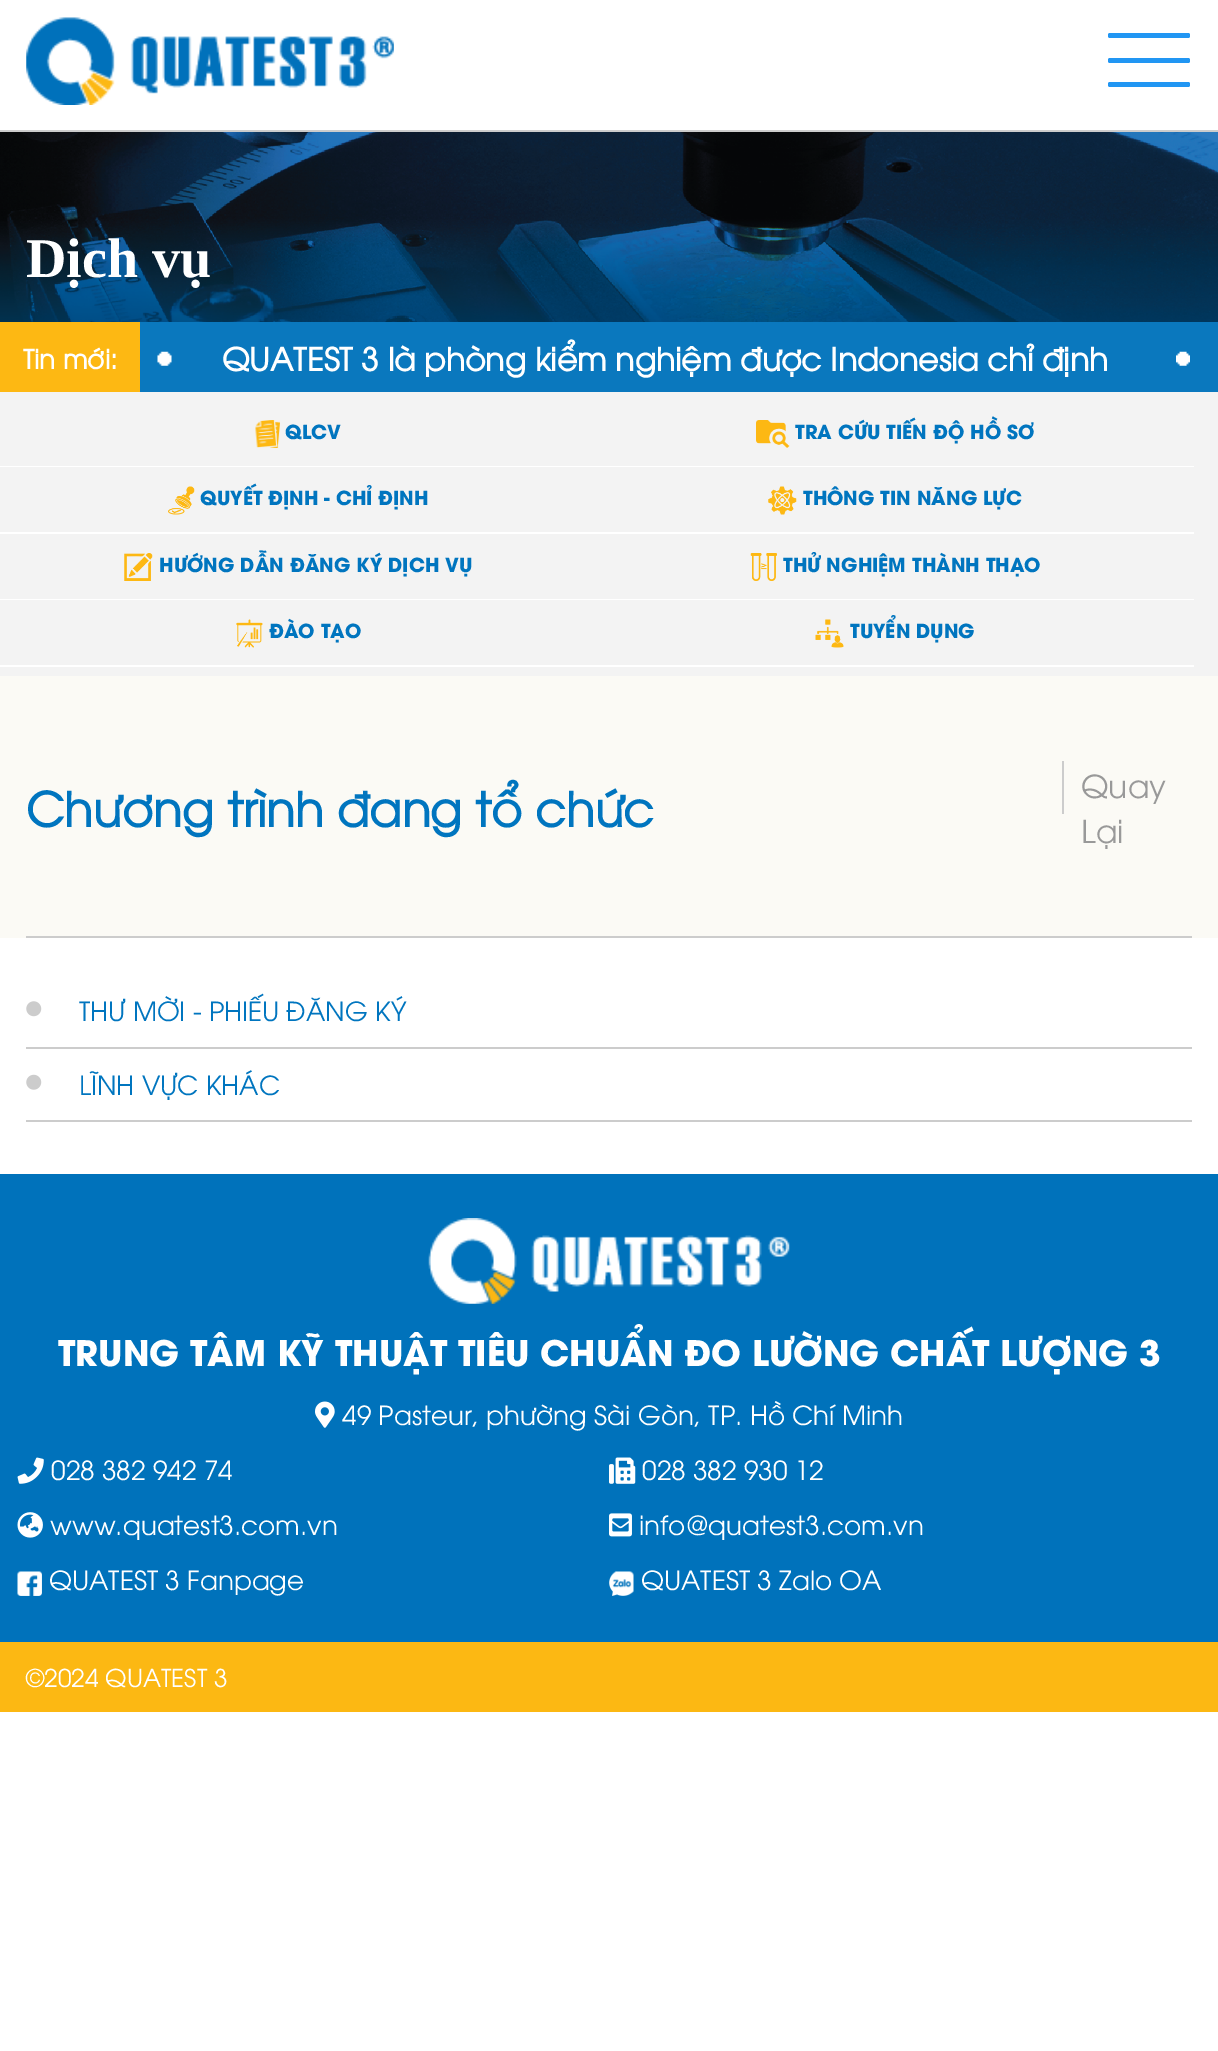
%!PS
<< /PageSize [1218 2051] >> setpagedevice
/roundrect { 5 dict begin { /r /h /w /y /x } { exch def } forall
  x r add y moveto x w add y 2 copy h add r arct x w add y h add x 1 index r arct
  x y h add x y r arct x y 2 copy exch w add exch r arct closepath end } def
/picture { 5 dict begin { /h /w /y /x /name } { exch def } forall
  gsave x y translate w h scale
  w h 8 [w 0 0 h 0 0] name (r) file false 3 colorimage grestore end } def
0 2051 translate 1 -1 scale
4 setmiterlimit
1 setgray
0 0 1218 2051 rectfill
0.8 setgray
0 130 1218 2 rectfill
(img1.rgb) 26 17 368 88 picture
0.129 0.588 0.953 setrgbcolor
1108 33 82 5 2 roundrect fill
1108 58 82 5 2 roundrect fill
1108 82 82 5 2 roundrect fill
(img2.rgb) 0 132 1218 190 picture
/LiberationSerif-Bold [56 0 0 -56 0 0] selectfont
1 setgray
26 277 moveto (Dịch vụ) show
0.039 0.471 0.745 setrgbcolor
140 322 1078 70 rectfill
0.992 0.722 0.075 setrgbcolor
0 322 140 70 rectfill
/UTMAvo-Bold [26.25 0 0 -26.25 0 0] selectfont
1 setgray
23 369 moveto (Tin mới:) show
(img3.rgb) 157 351 15 15 picture
/UTMAvo-Bold [31.5 0 0 -31.5 0 0] selectfont
222 371 moveto (QUATEST 3 là phòng kiểm nghiệm được Indonesia chỉ định) show
(img4.rgb) 1176 351 14 15 picture
0.953 setgray
0 392 1218 284 rectfill
1 setgray
0 466 1194 1 rectfill
(img5.rgb) 255 420 25 28 picture
/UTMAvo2-Bold [19.25 0 0 -19.25 0 0] selectfont
0 0.459 0.749 setrgbcolor
285 439 moveto (QLCV) show
(img6.rgb) 756 420 34 28 picture
795 439 moveto (TRA CỨU TIẾN ĐỘ HỒ SƠ) show
1 setgray
0 532 1194 2 rectfill
(img7.rgb) 168 486 27 29 picture
0 0.459 0.749 setrgbcolor
200 505 moveto (QUYẾT ĐỊNH - CHỈ ĐỊNH) show
(img8.rgb) 768 486 29 29 picture
803 505 moveto (THÔNG TIN NĂNG LỰC) show
1 setgray
0 599 1194 1 rectfill
(img9.rgb) 124 553 29 28 picture
0 0.459 0.749 setrgbcolor
159 572 moveto (HƯỚNG DẪN ĐĂNG KÝ DỊCH VỤ) show
(img10.rgb) 750 553 27 28 picture
783 572 moveto (THỬ NGHIỆM THÀNH THẠO) show
1 setgray
0 665 1194 2 rectfill
(img11.rgb) 236 619 27 29 picture
0 0.459 0.749 setrgbcolor
269 638 moveto (ĐÀO TẠO) show
(img12.rgb) 815 619 29 29 picture
850 638 moveto (TUYỂN DỤNG) show
0.984 0.98 0.961 setrgbcolor
0 676 1218 262 rectfill
/UTMAvo-Bold [47.25 0 0 -47.25 0 0] selectfont
0 0.459 0.749 setrgbcolor
26 827 moveto (Chương trình đang tổ chức) show
0.8 setgray
1062 761 2 53 rectfill
/UTMAvo-Regular [31.5 0 0 -31.5 0 0] selectfont
0.6 setgray
1081 798 moveto (Quay) show
1081 843 moveto (Lại) show
0.8 setgray
26 936 1166 2 rectfill
26 1047 1166 2 rectfill
(img13.rgb) 26 1001 16 16 picture
/UTMAvo-Regular [26.25 0 0 -26.25 0 0] selectfont
0 0.459 0.749 setrgbcolor
79 1021 moveto (THƯ MỜI - PHIẾU ĐĂNG KÝ) show
0.8 setgray
26 1120 1166 2 rectfill
(img14.rgb) 26 1074 16 16 picture
0 0.459 0.749 setrgbcolor
79 1095 moveto (LĨNH VỰC KHÁC) show
0 0.447 0.733 setrgbcolor
0 1174 1218 468 rectfill
(img15.rgb) 428 1218 362 86 picture
/UTMAvo2-Bold [35 0 0 -35 0 0] selectfont
1 setgray
58 1366 moveto (TRUNG TÂM KỸ THUẬT TIÊU CHUẨN ĐO LƯỜNG CHẤT LƯỢNG 3) show
(img16.rgb) 315 1401 20 27 picture
/UTMAvo-Regular [26.25 0 0 -26.25 0 0] selectfont
342 1425 moveto (49 Pasteur, phường Sài Gòn, TP. Hồ Chí Minh) show
(img17.rgb) 17 1457 27 27 picture
51 1480 moveto (028 382 942 74) show
(img18.rgb) 609 1457 27 27 picture
642 1480 moveto (028 382 930 12) show
(img19.rgb) 17 1512 26 26 picture
50 1535 moveto (www.quatest3.com.vn) show
(img20.rgb) 609 1513 23 24 picture
639 1535 moveto (info@quatest3.com.vn) show
(img21.rgb) 17 1571 25 25 picture
49 1590 moveto (QUATEST 3 Fanpage) show
(img22.rgb) 609 1571 25 25 picture
641 1590 moveto (QUATEST 3 Zalo OA) show
0.988 0.722 0.075 setrgbcolor
0 1642 1218 70 rectfill
/UTMAvo-Regular [24.5 0 0 -24.5 0 0] selectfont
1 setgray
26 1687 moveto (©2024 QUATEST 3) show
showpage
